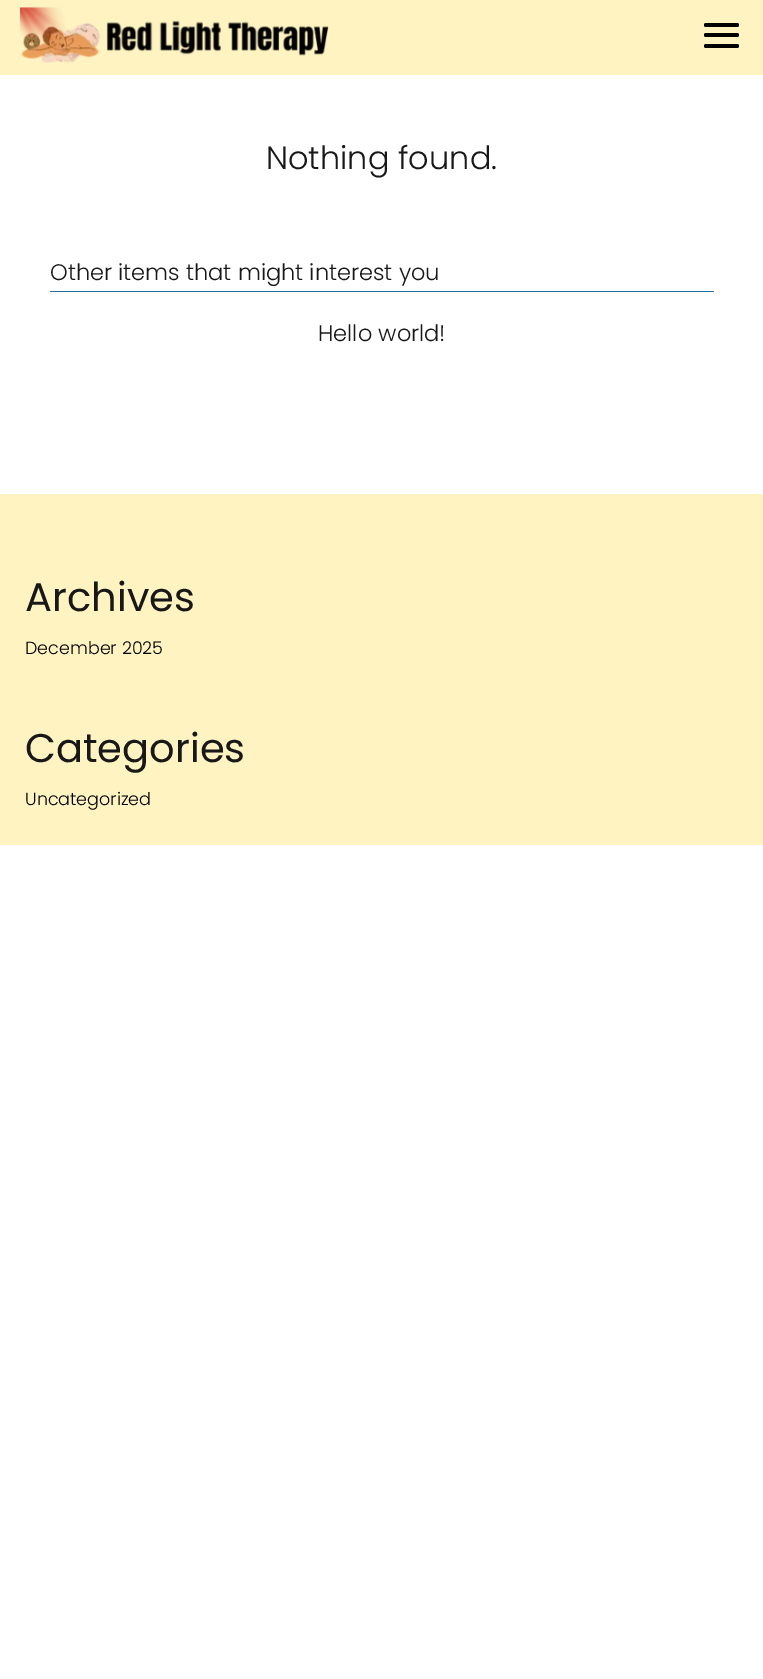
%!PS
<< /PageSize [763 1679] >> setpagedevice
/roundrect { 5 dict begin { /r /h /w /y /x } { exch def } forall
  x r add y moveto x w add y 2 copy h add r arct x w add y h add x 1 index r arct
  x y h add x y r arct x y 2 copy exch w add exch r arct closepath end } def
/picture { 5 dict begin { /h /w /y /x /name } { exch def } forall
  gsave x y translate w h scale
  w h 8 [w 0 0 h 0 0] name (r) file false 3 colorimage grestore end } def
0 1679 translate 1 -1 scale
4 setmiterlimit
1 setgray
0 0 763 1679 rectfill
1 0.953 0.761 setrgbcolor
0 0 763 75 rectfill
(img1.rgb) 20 7 309 56 picture
0 setgray
704 23 35 4 2 roundrect fill
704 33 35 4 2 roundrect fill
704 44 35 4 2 roundrect fill
/Poppins-Light [32 0 0 -32 0 0] selectfont
0.094 setgray
266 169 moveto (Nothing found.) show
0.141 0.443 0.639 setrgbcolor
50 291 664 1 rectfill
/Poppins-Light [22.5 0 0 -22.5 0 0] selectfont
0.094 setgray
50 280 moveto (Other items that might interest you) show
318 341 moveto (Hello world!) show
1 0.953 0.761 setrgbcolor
0 494 763 351 rectfill
/Poppins-Regular [40 0 0 -40 0 0] selectfont
0.094 setgray
25 611 moveto (Archives) show
/Poppins-Light [17.5 0 0 -17.5 0 0] selectfont
0 setgray
25 654 moveto (December 2025) show
/Poppins-Regular [40 0 0 -40 0 0] selectfont
0.094 setgray
25 762 moveto (Categories) show
/Poppins-Light [17.5 0 0 -17.5 0 0] selectfont
0 setgray
25 805 moveto (Uncategorized) show
showpage
